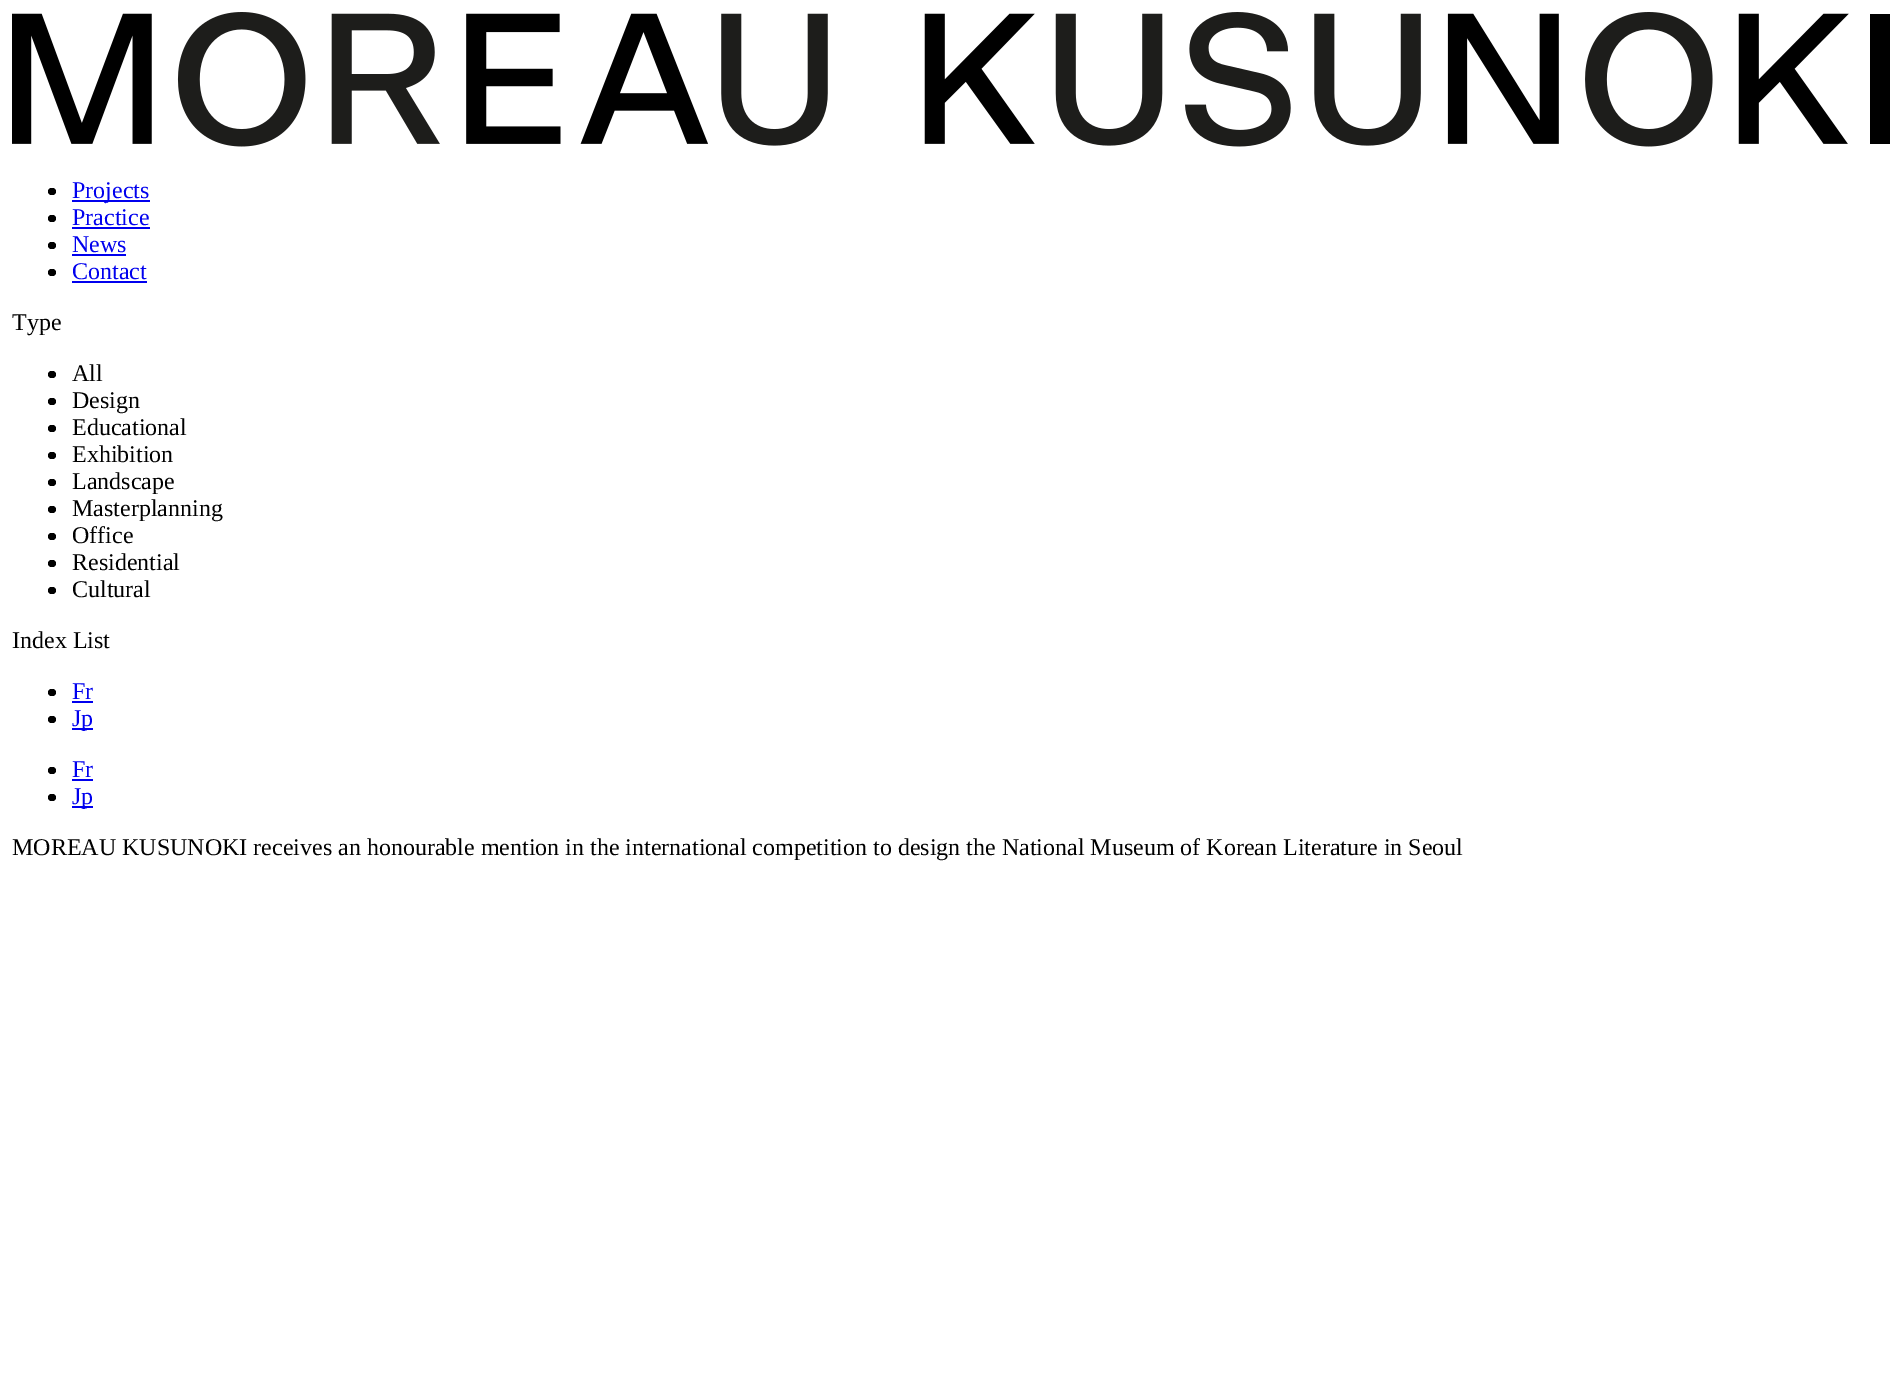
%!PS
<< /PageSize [1901 1397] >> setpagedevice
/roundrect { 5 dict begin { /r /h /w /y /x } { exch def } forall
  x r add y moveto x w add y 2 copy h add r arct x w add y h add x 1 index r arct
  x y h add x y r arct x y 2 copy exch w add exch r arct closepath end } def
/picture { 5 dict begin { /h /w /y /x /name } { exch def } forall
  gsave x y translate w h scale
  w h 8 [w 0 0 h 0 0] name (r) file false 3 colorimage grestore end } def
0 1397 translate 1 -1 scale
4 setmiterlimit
1 setgray
0 0 1901 1397 rectfill
(img1.rgb) 12 12 1878 135 picture
0 setgray
48 188 8 7 3.5 roundrect fill
0 0 0.933 setrgbcolor
72 200 78 2 rectfill
/LiberationSerif-Regular [24 0 0 -24 0 0] selectfont
72 198 moveto (Projects) show
0 setgray
48 215 8 7 3.5 roundrect fill
0 0 0.933 setrgbcolor
72 225 moveto (Practice) show
72 227 78 2 rectfill
0 setgray
48 242 8 7 3.5 roundrect fill
0 0 0.933 setrgbcolor
72 252 moveto (News) show
72 254 54 2 rectfill
0 setgray
48 269 8 7 3.5 roundrect fill
0 0 0.933 setrgbcolor
72 279 moveto (Contact) show
72 281 75 2 rectfill
0 setgray
12 330 moveto (Type) show
48 371 8 7 3.5 roundrect fill
72 381 moveto (All) show
48 398 8 7 3.5 roundrect fill
72 408 moveto (Design) show
48 425 8 7 3.5 roundrect fill
72 435 moveto (Educational) show
48 452 8 7 3.5 roundrect fill
72 462 moveto (Exhibition) show
48 479 8 7 3.5 roundrect fill
72 489 moveto (Landscape) show
48 506 8 7 3.5 roundrect fill
72 516 moveto (Masterplanning) show
48 533 8 7 3.5 roundrect fill
72 543 moveto (Office) show
48 560 8 7 3.5 roundrect fill
72 570 moveto (Residential) show
48 587 8 7 3.5 roundrect fill
72 597 moveto (Cultural) show
12 648 moveto (Index List) show
48 689 8 7 3.5 roundrect fill
0 0 0.933 setrgbcolor
72 699 moveto (Fr) show
72 701 21 2 rectfill
0 setgray
48 716 8 7 3.5 roundrect fill
0 0 0.933 setrgbcolor
72 728 21 2 rectfill
72 726 moveto (Jp) show
0 setgray
48 767 8 7 3.5 roundrect fill
0 0 0.933 setrgbcolor
72 777 moveto (Fr) show
72 779 21 2 rectfill
0 setgray
48 794 8 7 3.5 roundrect fill
0 0 0.933 setrgbcolor
72 806 21 2 rectfill
72 804 moveto (Jp) show
0 setgray
12 855 moveto (MOREAU KUSUNOKI receives an honourable mention in the international competition to design the National Museum of Korean Literature in Seoul) show
showpage
